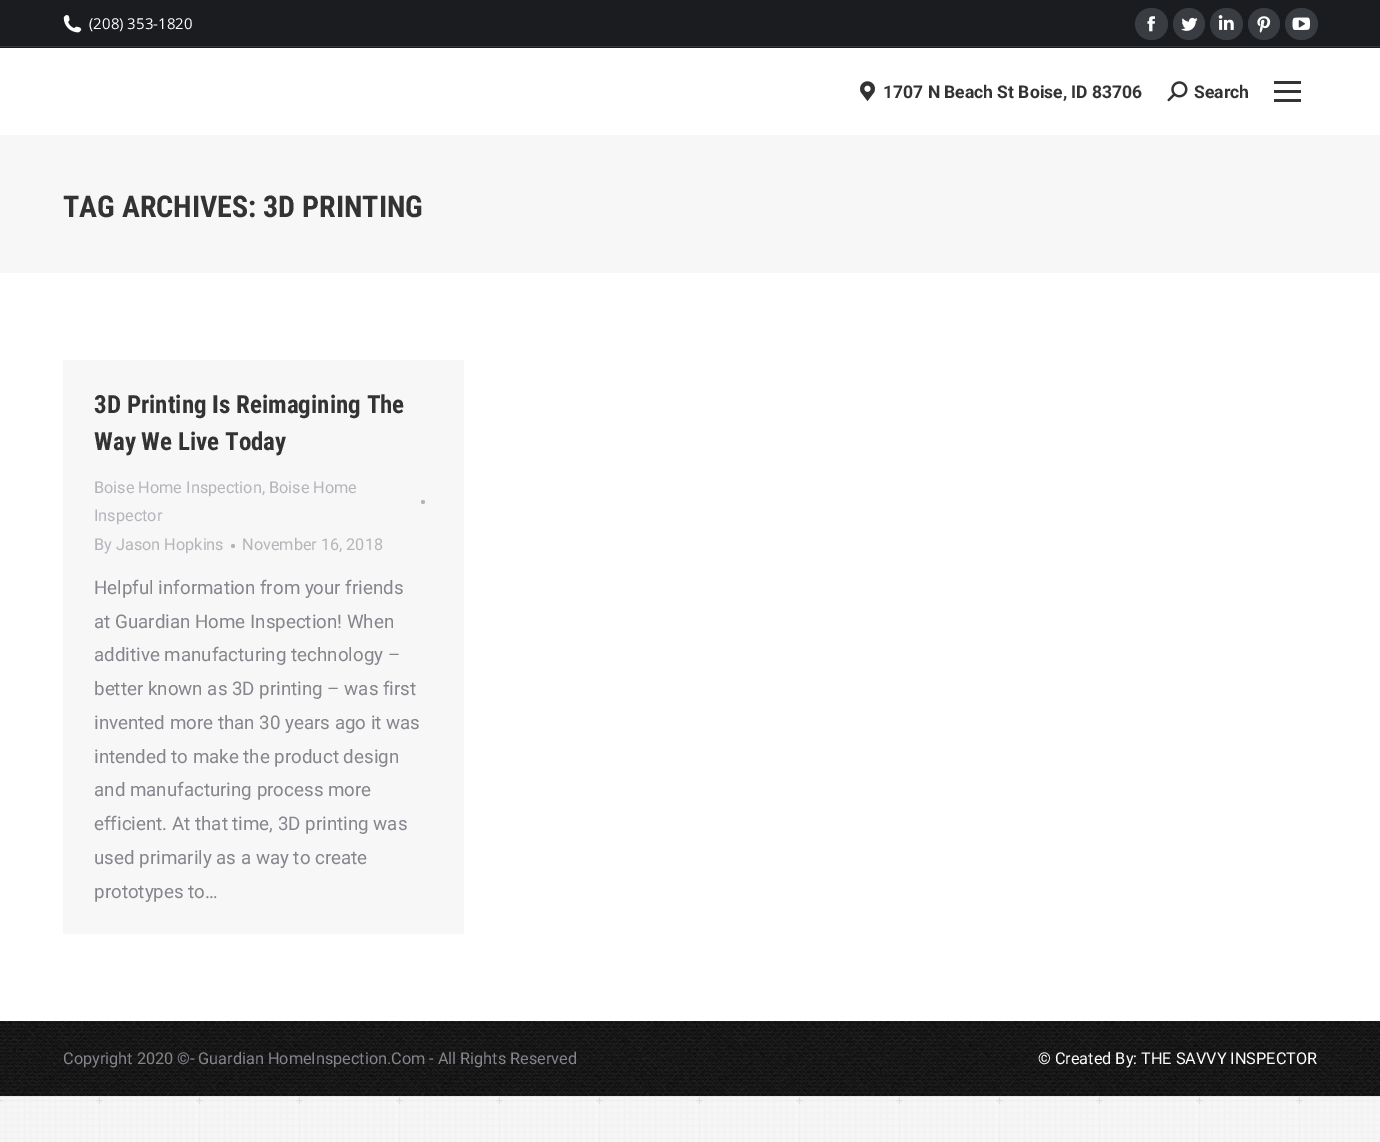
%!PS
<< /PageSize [1380 1142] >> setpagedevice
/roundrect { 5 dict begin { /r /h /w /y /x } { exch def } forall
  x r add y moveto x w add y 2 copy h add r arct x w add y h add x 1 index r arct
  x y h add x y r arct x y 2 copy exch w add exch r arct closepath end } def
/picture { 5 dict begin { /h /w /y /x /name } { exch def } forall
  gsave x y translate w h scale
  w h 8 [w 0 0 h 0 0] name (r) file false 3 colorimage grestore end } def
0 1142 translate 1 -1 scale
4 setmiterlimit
0.969 setgray
0 0 1380 1142 rectfill
(img1.rgb) 0 1096 1380 46 picture
1 setgray
0 48 1380 974 rectfill
0.102 0.11 0.125 setrgbcolor
0 0 1380 48 rectfill
(img2.rgb) 63 15 19 18 picture
/OpenSans-Regular [15 0 0 -15 0 0] selectfont
1 setgray
89 29 moveto (\(208\) 353-1820) show
0.224 0.235 0.255 setrgbcolor
1135 8 33 32 16 roundrect fill
(img3.rgb) 1147 16 8 16 picture
newpath 1189 24 16 0 360 arc closepath fill
(img4.rgb) 1181 17 17 14 picture
1210 8 33 32 16 roundrect fill
(img5.rgb) 1218 15 16 15 picture
newpath 1264 24 16 0 360 arc closepath fill
(img6.rgb) 1257 16 14 17 picture
1285 8 33 32 16 roundrect fill
(img7.rgb) 1292 17 18 13 picture
0.208 0.216 0.231 setrgbcolor
0 46 1380 1 rectfill
(img8.rgb) 860 81 15 21 picture
/Roboto-Bold [17.5 0 0 -17.5 0 0] selectfont
0.2 setgray
883 98 moveto (1707 N Beach St Boise, ID 83706) show
(img9.rgb) 1167 81 21 21 picture
1194 98 moveto (Search) show
1274 90 27 3 rectfill
1274 81 27 3 rectfill
1274 99 27 3 rectfill
0.969 setgray
0 135 1380 138 rectfill
/RobotoCondensed-Bold [30 0 0 -30 0 0] selectfont
0.2 setgray
63 217 moveto (TAG ARCHIVES: 3D PRINTING) show
0.969 setgray
63 360 401 574 rectfill
/RobotoCondensed-Bold [25 0 0 -25 0 0] selectfont
0.2 setgray
94 413 moveto (3D Printing Is Reimagining The) show
94 450 moveto (Way We Live Today) show
/Roboto-Regular [16.25 0 0 -16.25 0 0] selectfont
0.706 0.71 0.733 setrgbcolor
94 493 moveto (Boise Home Inspection, Boise Home) show
newpath 423 502 2 0 360 arc closepath fill
94 521 moveto (Inspector) show
94 550 moveto (By Jason Hopkins) show
newpath 233 546 2 0 360 arc closepath fill
242 550 moveto (November 16, 2018) show
/Roboto-Regular [18.75 0 0 -18.75 0 0] selectfont
0.522 0.525 0.549 setrgbcolor
94 594 moveto (Helpful information from your friends) show
94 628 moveto (at Guardian Home Inspection! When) show
94 661 moveto (additive manufacturing technology –) show
94 695 moveto (better known as 3D printing – was first) show
94 729 moveto (invented more than 30 years ago it was) show
94 763 moveto (intended to make the product design) show
94 796 moveto (and manufacturing process more) show
94 830 moveto (efficient. At that time, 3D printing was) show
94 864 moveto (used primarily as a way to create) show
94 898 moveto (prototypes to…) show
(img10.rgb) 0 1021 1380 76 picture
/Roboto-Regular [16.25 0 0 -16.25 0 0] selectfont
63 1064 moveto (Copyright 2020 ©- Guardian HomeInspection.Com - All Rights Reserved) show
1 setgray
1038 1064 moveto (© Created By: THE SAVVY INSPECTOR) show
showpage
